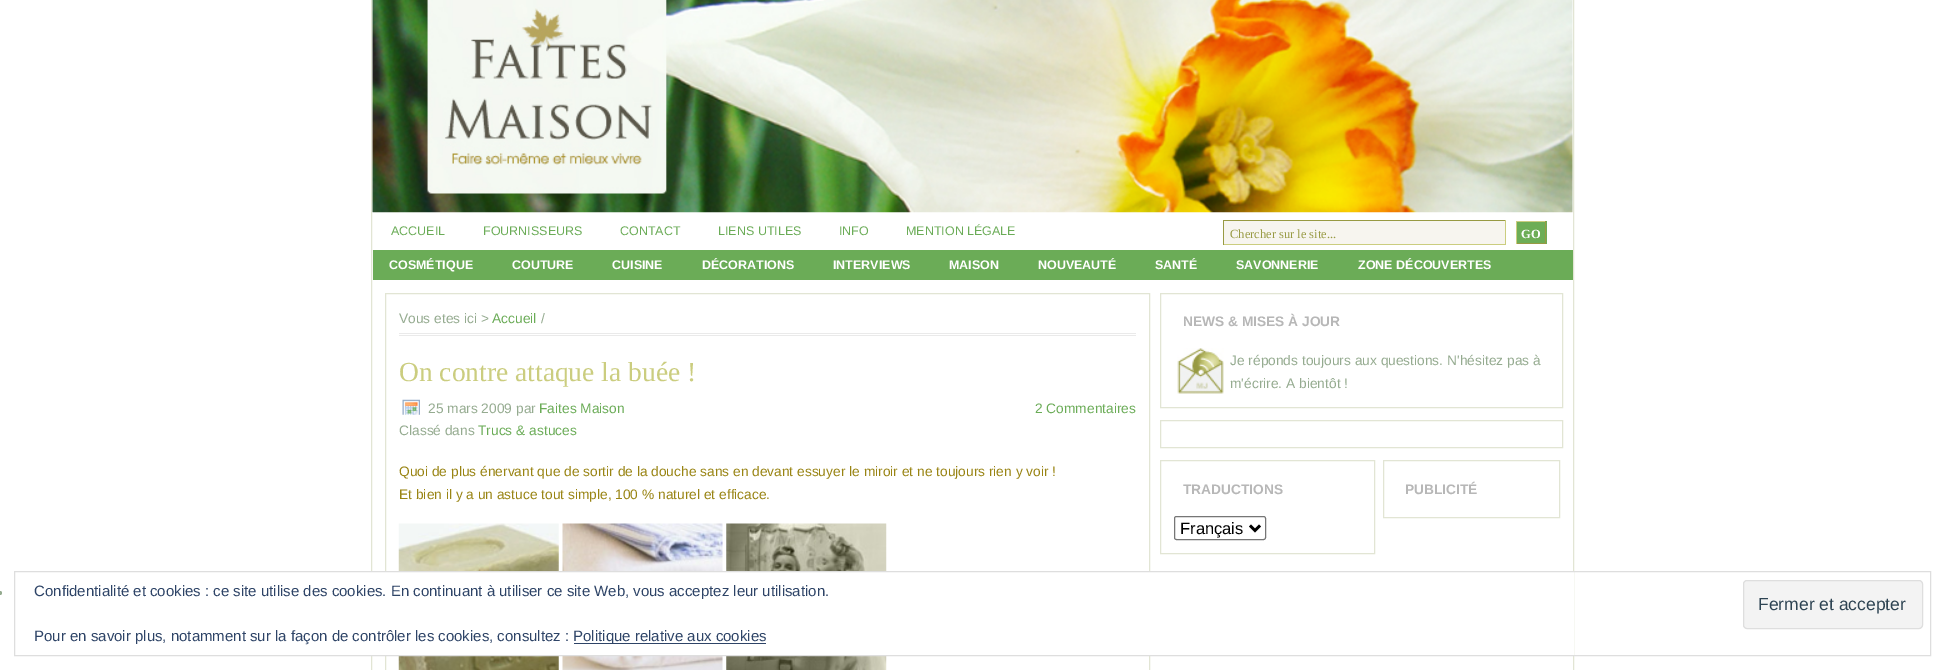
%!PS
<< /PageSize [1944 670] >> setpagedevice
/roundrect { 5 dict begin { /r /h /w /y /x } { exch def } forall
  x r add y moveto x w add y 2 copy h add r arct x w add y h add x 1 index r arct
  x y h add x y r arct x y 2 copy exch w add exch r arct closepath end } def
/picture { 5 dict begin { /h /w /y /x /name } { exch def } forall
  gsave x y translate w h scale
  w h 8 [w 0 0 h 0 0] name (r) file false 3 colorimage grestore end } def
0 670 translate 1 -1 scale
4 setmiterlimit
1 setgray
0 0 1944 670 rectfill
0.886 0.898 0.831 setrgbcolor
371.5 -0.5 1202 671 rectstroke
(img1.rgb) 372 0 1201 213 picture
/LiberationSans-Regular [12.5 0 0 -12.5 0 0] selectfont
0.42 0.675 0.341 setrgbcolor
391 235 moveto (ACCUEIL) show
483 235 moveto (FOURNISSEURS) show
620 235 moveto (CONTACT) show
718 235 moveto (LIENS UTILES) show
839 235 moveto (INFO) show
906 235 moveto (MENTION LÉGALE) show
0.969 0.961 0.937 setrgbcolor
1224 221 281 23 rectfill
0.596 0.604 0.263 setrgbcolor
1223 220 283 1 rectfill
0.796 0.804 0.498 setrgbcolor
1505 220 1 25 rectfill
1223 244 283 1 rectfill
0.596 0.604 0.263 setrgbcolor
1223 220 1 25 rectfill
/LiberationSerif-Regular [12.5 0 0 -12.5 0 0] selectfont
1230 238 moveto (Chercher sur le site...) show
0.427 0.678 0.337 setrgbcolor
1517 221 30 23 rectfill
0.796 0.804 0.498 setrgbcolor
1516 221 30 1 rectfill
0.596 0.604 0.263 setrgbcolor
1545 221 1 23 rectfill
1516 243 30 1 rectfill
0.796 0.804 0.498 setrgbcolor
1516 221 1 23 rectfill
/LiberationSerif-Bold [12.5 0 0 -12.5 0 0] selectfont
1 setgray
1521 238 moveto (GO) show
0.42 0.675 0.341 setrgbcolor
373 250 1200 30 rectfill
/LiberationSans-Bold [12.5 0 0 -12.5 0 0] selectfont
1 setgray
389 269 moveto (COSMÉTIQUE) show
512 269 moveto (COUTURE) show
612 269 moveto (CUISINE) show
702 269 moveto (DÉCORATIONS) show
833 269 moveto (INTERVIEWS) show
949 269 moveto (MAISON) show
1038 269 moveto (NOUVEAUTÉ) show
1155 269 moveto (SANTÉ) show
1236 269 moveto (SAVONNERIE) show
1358 269 moveto (ZONE DÉCOUVERTES) show
0.886 0.898 0.831 setrgbcolor
385.5 293.5 764 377 rectstroke
0.918 setgray
399 333 737 1 rectfill
399 335 737 1 rectfill
/LiberationSans-Regular [13.75 0 0 -13.75 0 0] selectfont
0.584 0.671 0.565 setrgbcolor
399 323 moveto (Vous etes ici >) show
0.42 0.675 0.341 setrgbcolor
492 323 moveto (Accueil) show
0.584 0.671 0.565 setrgbcolor
541 323 moveto (/) show
/LiberationSerif-Regular [27.5 0 0 -27.5 0 0] selectfont
0.796 0.804 0.498 setrgbcolor
399 381 moveto (On contre attaque la buée !) show
(img2.rgb) 402 399 18 16 picture
/LiberationSans-Regular [13.75 0 0 -13.75 0 0] selectfont
0.584 0.671 0.565 setrgbcolor
428 413 moveto (25 mars 2009 par) show
0.42 0.675 0.341 setrgbcolor
539 413 moveto (Faites Maison) show
0.584 0.671 0.565 setrgbcolor
399 435 moveto (Classé dans) show
0.42 0.675 0.341 setrgbcolor
478 435 moveto (Trucs & astuces) show
1035 413 moveto (2 Commentaires) show
0.6 0.518 0.075 setrgbcolor
399 476 moveto (Quoi de plus énervant que de sortir de la douche sans en devant essuyer le miroir et ne toujours rien y voir !) show
399 499 moveto (Et bien il y a un astuce tout simple, 100 % naturel et efficace.) show
(img3.rgb) 398 523 161 147 picture
(img4.rgb) 562 523 161 147 picture
(img5.rgb) 726 523 161 147 picture
(img6.rgb) 1177 348 47 46 picture
0.886 0.898 0.831 setrgbcolor
1160.5 293.5 402 114 rectstroke
/LiberationSans-Bold [13.75 0 0 -13.75 0 0] selectfont
0.718 setgray
1183 326 moveto (NEWS & MISES À JOUR) show
/LiberationSans-Regular [13.75 0 0 -13.75 0 0] selectfont
0.584 0.671 0.565 setrgbcolor
1230 365 moveto (Je réponds toujours aux questions. N'hésitez pas à) show
1230 388 moveto (m'écrire. A bientôt !) show
0.886 0.898 0.831 setrgbcolor
1160.5 420.5 402 27 rectstroke
1160.5 460.5 214 93 rectstroke
/LiberationSans-Bold [13.75 0 0 -13.75 0 0] selectfont
0.718 setgray
1183 494 moveto (TRADUCTIONS) show
0.463 setgray
1174.5 516.5 91 23 2 roundrect stroke
0 setgray
2.5 setlinewidth
newpath 1250 525.5 moveto 1255 530.5 lineto 1260 525.5 lineto stroke
/LiberationSans-Regular [16.5 0 0 -16.5 0 0] selectfont
1180 534 moveto (Français) show
0.886 0.898 0.831 setrgbcolor
1 setlinewidth
1383.5 460.5 176 57 rectstroke
/LiberationSans-Bold [13.75 0 0 -13.75 0 0] selectfont
0.718 setgray
1405 494 moveto (PUBLICITÉ) show
0.584 0.671 0.565 setrgbcolor
newpath 0 593 2 0 360 arc closepath fill
1 setgray
371 572 1203 83 rectfill
0.871 setgray
14.5 571.5 1916 84 rectstroke
/LiberationSans-Regular [15 0 0 -15 0 0] selectfont
0.18 0.267 0.404 setrgbcolor
34 596 moveto (Confidentialité et cookies : ce site utilise des cookies. En continuant à utiliser ce site Web, vous acceptez leur utilisation.) show
0.953 setgray
1743.5 580.5 179 48 3.5 roundrect gsave fill grestore
0.871 setgray
stroke
/LiberationSans-Regular [17.5 0 0 -17.5 0 0] selectfont
0.18 0.267 0.325 setrgbcolor
1758 610 moveto (Fermer et accepter) show
/LiberationSans-Regular [15 0 0 -15 0 0] selectfont
0.18 0.267 0.404 setrgbcolor
34 641 moveto (Pour en savoir plus, notamment sur la façon de contrôler les cookies, consultez :) show
574 643 192 1 rectfill
573 641 moveto (Politique relative aux cookies) show
showpage
